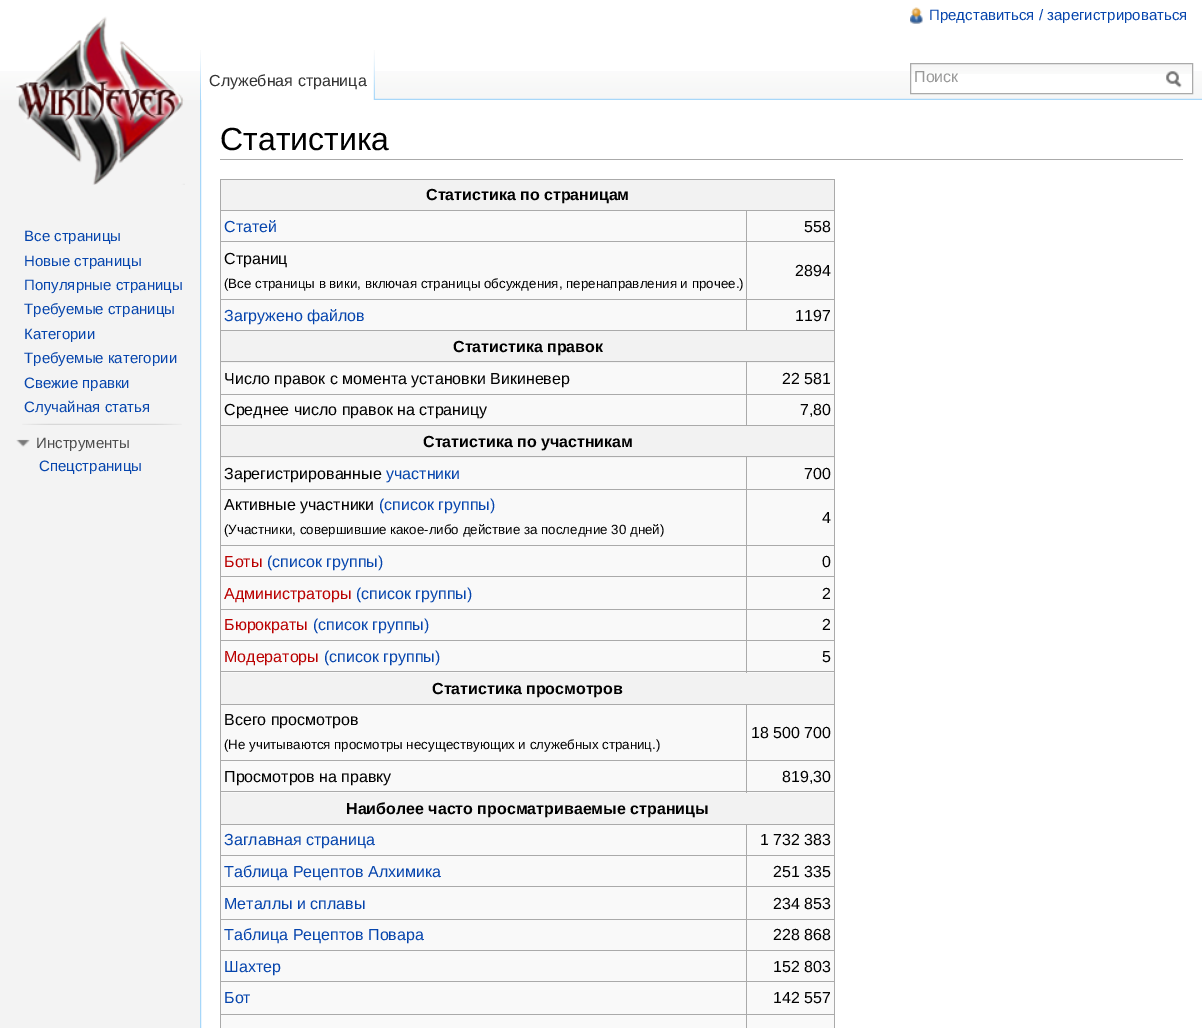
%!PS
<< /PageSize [1202 1028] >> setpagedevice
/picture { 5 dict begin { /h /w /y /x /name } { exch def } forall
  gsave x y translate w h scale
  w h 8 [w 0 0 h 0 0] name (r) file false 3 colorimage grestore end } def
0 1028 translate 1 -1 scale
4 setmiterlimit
0.953 setgray
0 0 1202 1028 rectfill
1 setgray
0 0 1202 71 rectfill
(img1.rgb) 0 71 1202 29 picture
(img2.rgb) 910 7 13 17 picture
/LiberationSans-Regular [15 0 0 -15 0 0] selectfont
0.024 0.271 0.678 setrgbcolor
929 20 moveto (Представиться / зарегистрироваться) show
(img7.rgb) 200 98 1002 2 picture
(img3.rgb) 200 50 1 49 picture
1 setgray
201 71 173 29 rectfill
(img4.rgb) 373 50 2 50 picture
/LiberationSans-Regular [16 0 0 -16 0 0] selectfont
0.2 setgray
209 86 moveto (Служебная страница) show
1 setgray
911 74 281 19 rectfill
(img5.rgb) 911 64 281 10 picture
0.667 setgray
910.5 63.5 282 30 rectstroke
0.6 setgray
914 82 moveto (Поиск) show
(img6.rgb) 1166 71 16 17 picture
(img8.rgb) 16 16 169 169 picture
/LiberationSans-Regular [15 0 0 -15 0 0] selectfont
0.024 0.271 0.678 setrgbcolor
24 241 moveto (Все страницы) show
24 266 moveto (Новые страницы) show
24 290 moveto (Популярные страницы) show
24 314 moveto (Требуемые страницы) show
24 339 moveto (Категории) show
24 363 moveto (Требуемые категории) show
24 388 moveto (Свежие правки) show
24 412 moveto (Случайная статья) show
(img9.rgb) 22 423 160 2 picture
(img10.rgb) 16 439 14 8 picture
0.302 setgray
36 448 moveto (Инструменты) show
0.024 0.271 0.678 setrgbcolor
39 471 moveto (Спецстраницы) show
1 setgray
201 100 1001 928 rectfill
(img11.rgb) 200 100 2 928 picture
0.667 setgray
220 159 963 1 rectfill
/LiberationSans-Regular [32 0 0 -32 0 0] selectfont
0 setgray
220 150 moveto (Статистика) show
0.976 setgray
221 211 613 817 rectfill
0.667 setgray
220 179 615 1 rectfill
834 179 1 849 rectfill
220 179 1 849 rectfill
0.949 setgray
221 180 613 30 rectfill
/LiberationSans-Bold [16 0 0 -16 0 0] selectfont
0 setgray
426 200 moveto (Статистика по страницам) show
0.667 setgray
746 210 89 1 rectfill
746 241 89 1 rectfill
746 299 89 1 rectfill
220 330 615 1 rectfill
746 299 1 32 rectfill
220 299 528 1 rectfill
746 241 1 59 rectfill
220 241 528 1 rectfill
746 210 1 33 rectfill
220 210 528 1 rectfill
/LiberationSans-Regular [16 0 0 -16 0 0] selectfont
0.024 0.271 0.678 setrgbcolor
224 232 moveto (Статей) show
0 setgray
804 232 moveto (558) show
224 264 moveto (Страниц) show
/LiberationSans-Regular [13.35 0 0 -13.35 0 0] selectfont
224 288 moveto (\(Все страницы в вики, включая страницы обсуждения, перенаправления и прочее.\)) show
/LiberationSans-Regular [16 0 0 -16 0 0] selectfont
795 276 moveto (2894) show
0.024 0.271 0.678 setrgbcolor
224 321 moveto (Загружено файлов) show
0 setgray
795 321 moveto (1197) show
0.949 setgray
221 331 613 32 rectfill
/LiberationSans-Bold [16 0 0 -16 0 0] selectfont
0 setgray
453 352 moveto (Статистика правок) show
0.667 setgray
746 361 89 1 rectfill
746 394 89 1 rectfill
220 425 615 1 rectfill
746 394 1 32 rectfill
220 394 528 1 rectfill
746 361 1 34 rectfill
220 361 528 1 rectfill
/LiberationSans-Regular [16 0 0 -16 0 0] selectfont
0 setgray
224 384 moveto (Число правок с момента установки Викиневер) show
782 384 moveto (22 581) show
224 415 moveto (Среднее число правок на страницу) show
800 415 moveto (7,80) show
0.949 setgray
221 426 613 32 rectfill
/LiberationSans-Bold [16 0 0 -16 0 0] selectfont
0 setgray
423 447 moveto (Статистика по участникам) show
0.667 setgray
746 456 89 1 rectfill
746 489 89 1 rectfill
746 545 89 1 rectfill
746 576 89 1 rectfill
746 609 89 1 rectfill
746 640 89 1 rectfill
220 671 615 1 rectfill
746 640 1 33 rectfill
220 640 528 1 rectfill
746 609 1 32 rectfill
220 609 528 1 rectfill
746 576 1 34 rectfill
220 576 528 1 rectfill
746 545 1 33 rectfill
220 545 528 1 rectfill
746 489 1 57 rectfill
220 489 528 1 rectfill
746 456 1 34 rectfill
220 456 528 1 rectfill
/LiberationSans-Regular [16 0 0 -16 0 0] selectfont
0 setgray
224 479 moveto (Зарегистрированные) show
0.024 0.271 0.678 setrgbcolor
386 479 moveto (участники) show
0 setgray
804 479 moveto (700) show
224 510 moveto (Активные участники) show
0.024 0.271 0.678 setrgbcolor
379 510 moveto (\(список группы\)) show
/LiberationSans-Regular [13.35 0 0 -13.35 0 0] selectfont
0 setgray
224 534 moveto (\(Участники, совершившие какое-либо действие за последние 30 дней\)) show
/LiberationSans-Regular [16 0 0 -16 0 0] selectfont
822 523 moveto (4) show
0.729 0 0 setrgbcolor
224 567 moveto (Боты) show
0.024 0.271 0.678 setrgbcolor
267 567 moveto (\(список группы\)) show
0 setgray
822 567 moveto (0) show
0.729 0 0 setrgbcolor
224 599 moveto (Администраторы) show
0.024 0.271 0.678 setrgbcolor
356 599 moveto (\(список группы\)) show
0 setgray
822 599 moveto (2) show
0.729 0 0 setrgbcolor
224 630 moveto (Бюрократы) show
0.024 0.271 0.678 setrgbcolor
313 630 moveto (\(список группы\)) show
0 setgray
822 630 moveto (2) show
0.729 0 0 setrgbcolor
224 662 moveto (Модераторы) show
0.024 0.271 0.678 setrgbcolor
324 662 moveto (\(список группы\)) show
0 setgray
822 662 moveto (5) show
0.949 setgray
221 673 613 31 rectfill
/LiberationSans-Bold [16 0 0 -16 0 0] selectfont
0 setgray
432 694 moveto (Статистика просмотров) show
0.667 setgray
746 704 89 1 rectfill
746 760 89 1 rectfill
220 791 615 1 rectfill
746 760 1 33 rectfill
220 760 528 1 rectfill
746 704 1 57 rectfill
220 704 528 1 rectfill
/LiberationSans-Regular [16 0 0 -16 0 0] selectfont
0 setgray
224 725 moveto (Всего просмотров) show
/LiberationSans-Regular [13.35 0 0 -13.35 0 0] selectfont
224 749 moveto (\(Не учитываются просмотры несуществующих и служебных страниц.\)) show
/LiberationSans-Regular [16 0 0 -16 0 0] selectfont
751 738 moveto (18 500 700) show
224 782 moveto (Просмотров на правку) show
782 782 moveto (819,30) show
0.949 setgray
221 793 613 31 rectfill
/LiberationSans-Bold [16 0 0 -16 0 0] selectfont
0 setgray
346 814 moveto (Наиболее часто просматриваемые страницы) show
0.667 setgray
746 824 89 1 rectfill
746 855 89 1 rectfill
746 886 89 1 rectfill
746 919 89 1 rectfill
746 950 89 1 rectfill
746 981 89 1 rectfill
746 1014 89 1 rectfill
746 1014 1 14 rectfill
220 1014 528 1 rectfill
746 981 1 34 rectfill
220 981 528 1 rectfill
746 950 1 33 rectfill
220 950 528 1 rectfill
746 919 1 32 rectfill
220 919 528 1 rectfill
746 886 1 34 rectfill
220 886 528 1 rectfill
746 855 1 33 rectfill
220 855 528 1 rectfill
746 824 1 32 rectfill
220 824 528 1 rectfill
/LiberationSans-Regular [16 0 0 -16 0 0] selectfont
0.024 0.271 0.678 setrgbcolor
224 845 moveto (Заглавная страница) show
0 setgray
760 845 moveto (1 732 383) show
0.024 0.271 0.678 setrgbcolor
224 877 moveto (Таблица Рецептов Алхимика) show
0 setgray
773 877 moveto (251 335) show
0.024 0.271 0.678 setrgbcolor
224 909 moveto (Металлы и сплавы) show
0 setgray
773 909 moveto (234 853) show
0.024 0.271 0.678 setrgbcolor
224 940 moveto (Таблица Рецептов Повара) show
0 setgray
773 940 moveto (228 868) show
0.024 0.271 0.678 setrgbcolor
224 972 moveto (Шахтер) show
0 setgray
773 972 moveto (152 803) show
0.024 0.271 0.678 setrgbcolor
224 1003 moveto (Бот) show
0 setgray
773 1003 moveto (142 557) show
showpage
